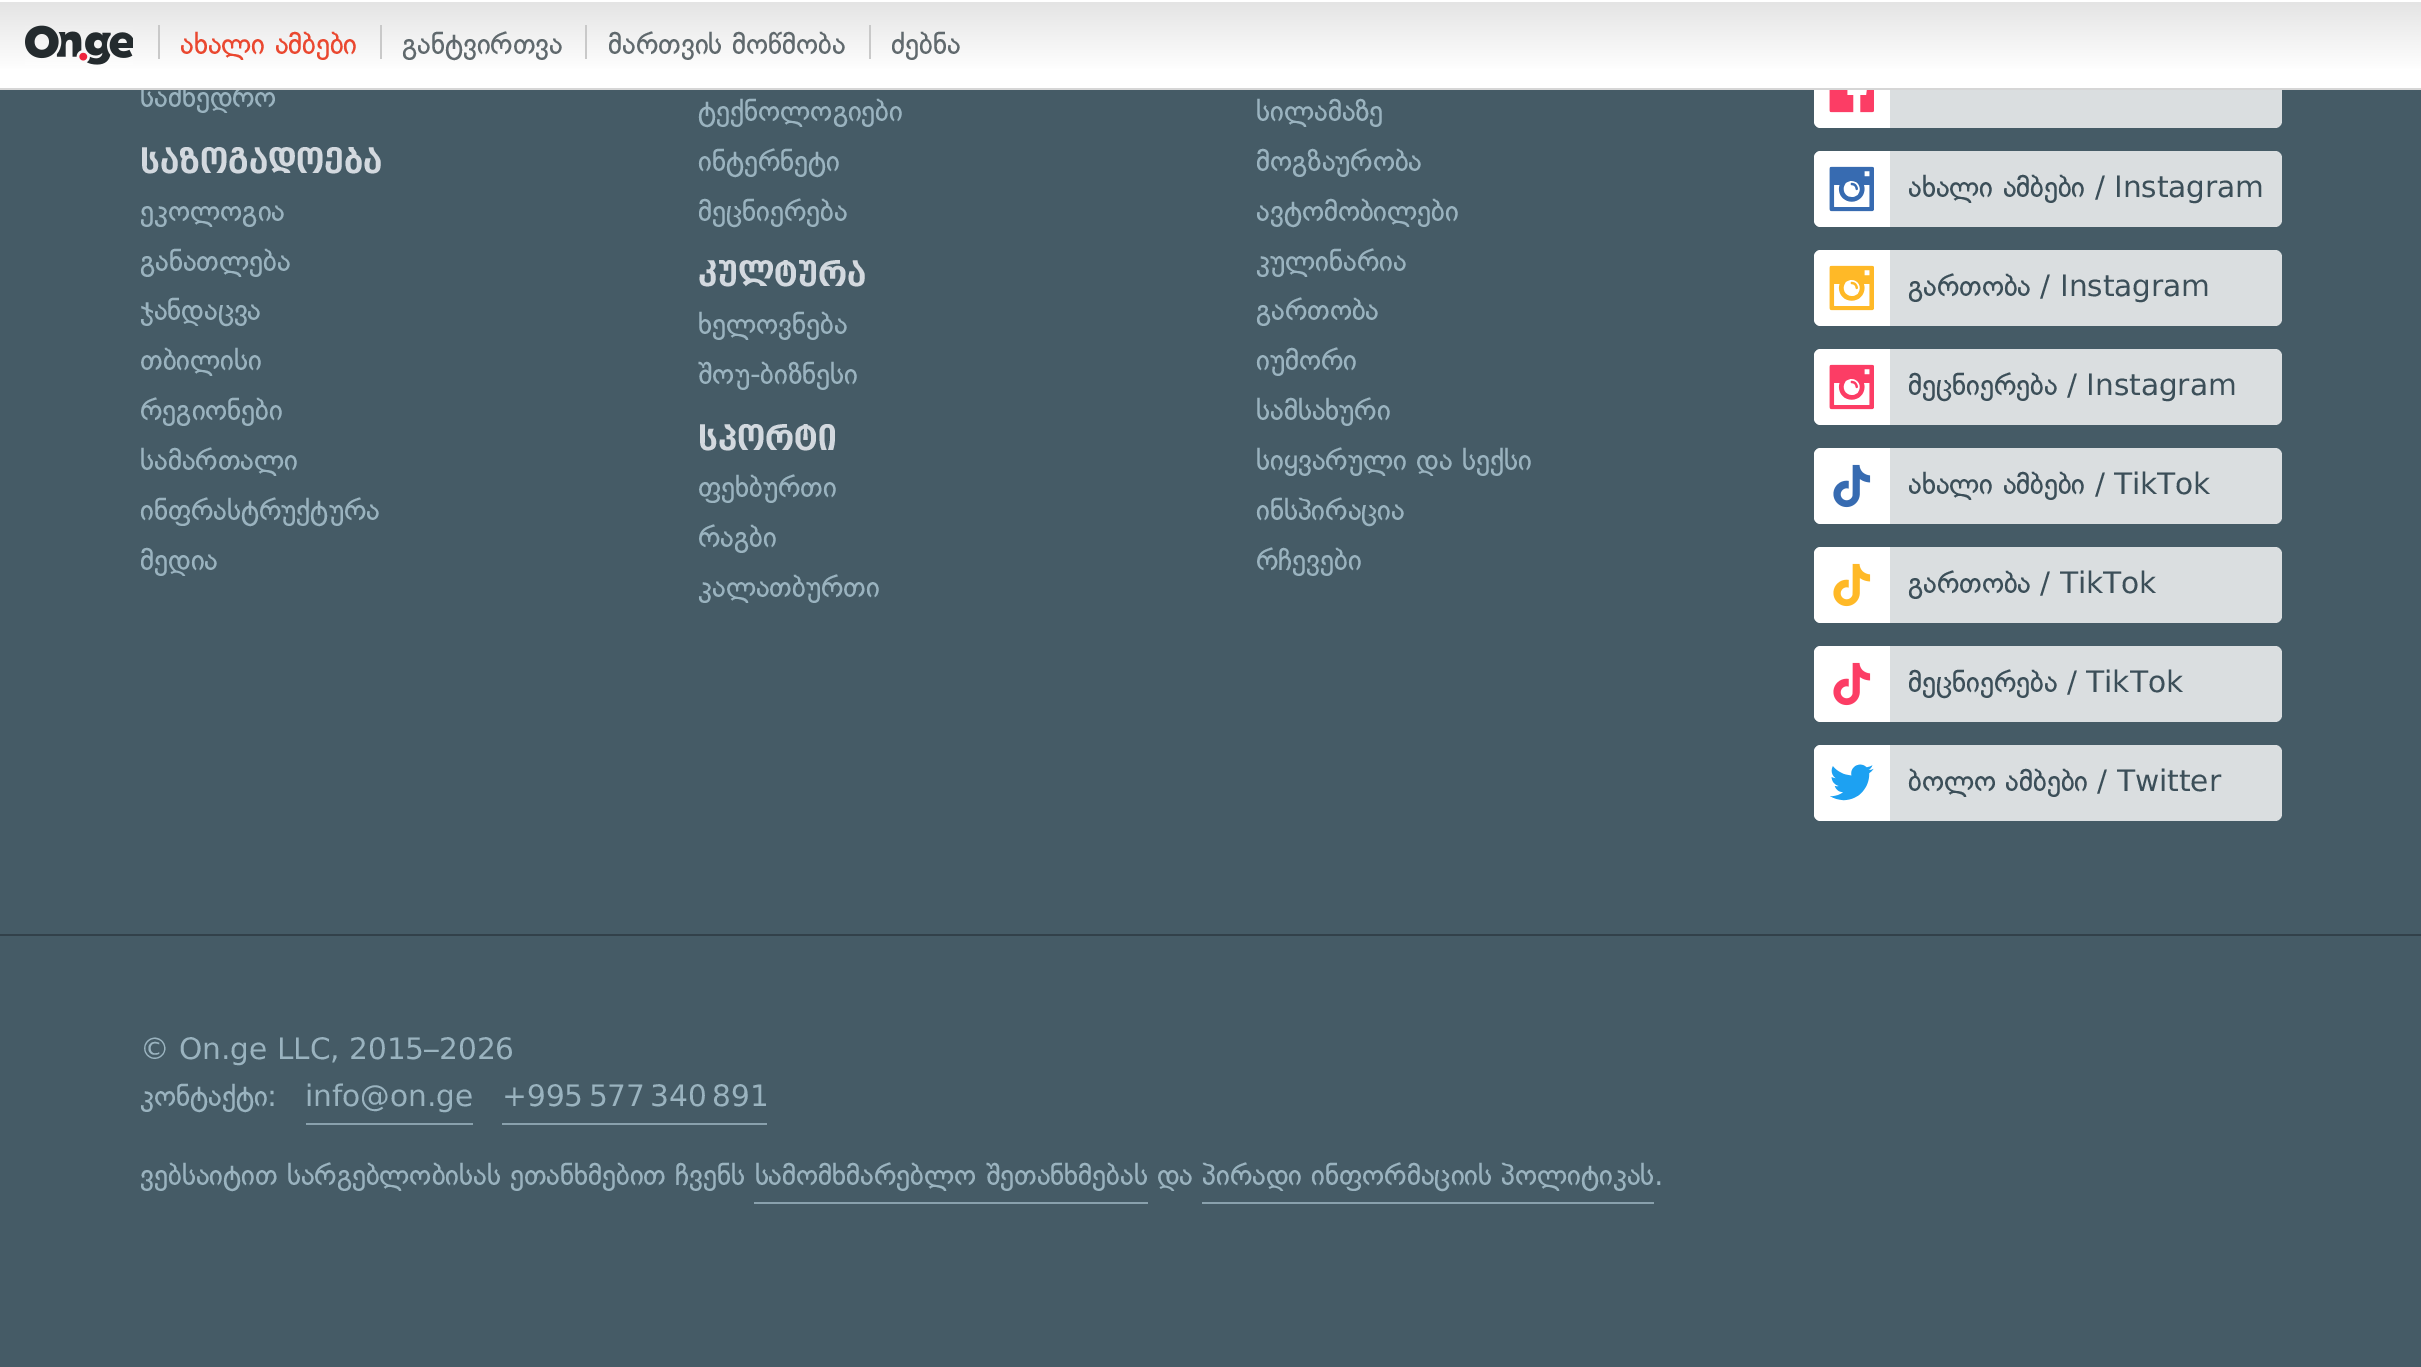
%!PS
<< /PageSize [2421 1367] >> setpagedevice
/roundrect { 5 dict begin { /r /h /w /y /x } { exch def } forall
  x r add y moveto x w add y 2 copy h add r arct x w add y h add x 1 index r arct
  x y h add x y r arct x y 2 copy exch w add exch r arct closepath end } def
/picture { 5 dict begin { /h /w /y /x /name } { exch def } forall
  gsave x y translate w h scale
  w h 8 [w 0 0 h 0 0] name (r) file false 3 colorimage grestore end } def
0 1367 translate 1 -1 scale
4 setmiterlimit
0.271 0.357 0.4 setrgbcolor
0 0 2421 1367 rectfill
/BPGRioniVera-Regular [31.5 0 0 -31.5 0 0] selectfont
0.604 0.702 0.749 setrgbcolor
140 107 moveto (სამხედრო) show
0.855 0.871 0.878 setrgbcolor
1814 52 468 76 7 roundrect fill
1 setgray
newpath 1821 52 moveto 1890 52 lineto 1890 128 lineto 1821 128 lineto 1817 128 1814 125 1814 121 curveto 1814 59 lineto 1814 55 1817 52 1821 52 curveto closepath fill
gsave newpath 0 2 moveto 2421 2 lineto 2421 88 lineto 0 88 lineto closepath clip newpath
<< /ShadingType 2 /ColorSpace /DeviceRGB /Coords [1211 0 1211 88] /Extend [true true] /Function << /FunctionType 3 /Domain [0 1] /Functions [<< /FunctionType 2 /Domain [0 1] /C0 [0.89 0.89 0.89] /C1 [1 1 1] /N 1 >> << /FunctionType 2 /Domain [0 1] /C0 [1 1 1] /C1 [1 1 1] /N 1 >>] /Bounds [0.8] /Encode [0 1 0 1] >> >> shfill grestore
0 0 2421 2 rectfill
0.839 setgray
0 88 2421 2 rectfill
(img1.rgb) 25 25 108 40 picture
0.788 setgray
158 25 2 34 rectfill
0.918 0.282 0.188 setrgbcolor
180 54 moveto (ახალი ამბები) show
0.788 setgray
380 25 2 34 rectfill
0.376 0.412 0.427 setrgbcolor
402 54 moveto (განტვირთვა) show
0.788 setgray
585 25 2 34 rectfill
0.376 0.412 0.427 setrgbcolor
608 54 moveto (მართვის მოწმობა) show
0.788 setgray
869 25 2 34 rectfill
0.376 0.412 0.427 setrgbcolor
891 54 moveto (ძებნა) show
/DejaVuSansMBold-Bold [31.5 0 0 -31.5 0 0] selectfont
0.827 0.851 0.875 setrgbcolor
140 173 moveto (საზოგადოება) show
/BPGRioniVera-Regular [31.5 0 0 -31.5 0 0] selectfont
0.604 0.702 0.749 setrgbcolor
140 221 moveto (ეკოლოგია) show
140 271 moveto (განათლება) show
140 320 moveto (ჯანდაცვა) show
140 370 moveto (თბილისი) show
140 420 moveto (რეგიონები) show
140 470 moveto (სამართალი) show
140 520 moveto (ინფრასტრუქტურა) show
140 570 moveto (მედია) show
698 121 moveto (ტექნოლოგიები) show
698 171 moveto (ინტერნეტი) show
698 221 moveto (მეცნიერება) show
/DejaVuSansMBold-Bold [31.5 0 0 -31.5 0 0] selectfont
0.827 0.851 0.875 setrgbcolor
698 286 moveto (კულტურა) show
/BPGRioniVera-Regular [31.5 0 0 -31.5 0 0] selectfont
0.604 0.702 0.749 setrgbcolor
698 334 moveto (ხელოვნება) show
698 384 moveto (შოუ-ბიზნესი) show
/DejaVuSansMBold-Bold [31.5 0 0 -31.5 0 0] selectfont
0.827 0.851 0.875 setrgbcolor
698 450 moveto (სპორტი) show
/BPGRioniVera-Regular [31.5 0 0 -31.5 0 0] selectfont
0.604 0.702 0.749 setrgbcolor
698 497 moveto (ფეხბურთი) show
698 547 moveto (რაგბი) show
698 597 moveto (კალათბურთი) show
1256 121 moveto (სილამაზე) show
1256 171 moveto (მოგზაურობა) show
1256 221 moveto (ავტომობილები) show
1256 271 moveto (კულინარია) show
1256 320 moveto (გართობა) show
1256 370 moveto (იუმორი) show
1256 420 moveto (სამსახური) show
1256 470 moveto (სიყვარული და სექსი) show
1256 520 moveto (ინსპირაცია) show
1256 570 moveto (რჩევები) show
(img2.rgb) 1829 90 45 23 picture
0.855 0.871 0.878 setrgbcolor
1814 151 468 76 7 roundrect fill
1 setgray
newpath 1821 151 moveto 1890 151 lineto 1890 227 lineto 1821 227 lineto 1817 227 1814 224 1814 220 curveto 1814 158 lineto 1814 154 1817 151 1821 151 curveto closepath fill
(img3.rgb) 1829 166 45 46 picture
0.235 0.31 0.349 setrgbcolor
1908 197 moveto (ახალი ამბები / Instagram) show
0.855 0.871 0.878 setrgbcolor
1814 250 468 76 7 roundrect fill
1 setgray
newpath 1821 250 moveto 1890 250 lineto 1890 326 lineto 1821 326 lineto 1817 326 1814 323 1814 319 curveto 1814 257 lineto 1814 253 1817 250 1821 250 curveto closepath fill
(img4.rgb) 1829 265 45 46 picture
0.235 0.31 0.349 setrgbcolor
1908 296 moveto (გართობა / Instagram) show
0.855 0.871 0.878 setrgbcolor
1814 349 468 76 7 roundrect fill
1 setgray
newpath 1821 349 moveto 1890 349 lineto 1890 425 lineto 1821 425 lineto 1817 425 1814 422 1814 418 curveto 1814 356 lineto 1814 352 1817 349 1821 349 curveto closepath fill
(img5.rgb) 1829 364 45 46 picture
0.235 0.31 0.349 setrgbcolor
1908 395 moveto (მეცნიერება / Instagram) show
0.855 0.871 0.878 setrgbcolor
1814 448 468 76 7 roundrect fill
1 setgray
newpath 1821 448 moveto 1890 448 lineto 1890 524 lineto 1821 524 lineto 1817 524 1814 521 1814 517 curveto 1814 455 lineto 1814 451 1817 448 1821 448 curveto closepath fill
(img6.rgb) 1833 464 38 44 picture
0.235 0.31 0.349 setrgbcolor
1908 494 moveto (ახალი ამბები / TikTok) show
0.855 0.871 0.878 setrgbcolor
1814 547 468 76 7 roundrect fill
1 setgray
newpath 1821 547 moveto 1890 547 lineto 1890 623 lineto 1821 623 lineto 1817 623 1814 620 1814 616 curveto 1814 554 lineto 1814 550 1817 547 1821 547 curveto closepath fill
(img7.rgb) 1833 563 38 44 picture
0.235 0.31 0.349 setrgbcolor
1908 593 moveto (გართობა / TikTok) show
0.855 0.871 0.878 setrgbcolor
1814 646 468 76 7 roundrect fill
1 setgray
newpath 1821 646 moveto 1890 646 lineto 1890 722 lineto 1821 722 lineto 1817 722 1814 719 1814 715 curveto 1814 653 lineto 1814 649 1817 646 1821 646 curveto closepath fill
(img8.rgb) 1833 662 38 44 picture
0.235 0.31 0.349 setrgbcolor
1908 692 moveto (მეცნიერება / TikTok) show
0.855 0.871 0.878 setrgbcolor
1814 745 468 76 7 roundrect fill
1 setgray
newpath 1821 745 moveto 1890 745 lineto 1890 821 lineto 1821 821 lineto 1817 821 1814 818 1814 814 curveto 1814 752 lineto 1814 748 1817 745 1821 745 curveto closepath fill
(img9.rgb) 1830 764 44 37 picture
0.235 0.31 0.349 setrgbcolor
1908 791 moveto (ბოლო ამბები / Twitter) show
0.196 0.255 0.29 setrgbcolor
0 934 2421 2 rectfill
0.604 0.702 0.749 setrgbcolor
140 1059 moveto (© On.ge LLC, 2015–2026) show
140 1106 moveto (კონტაქტი:) show
0.537 0.631 0.678 setrgbcolor
306 1123 167 2 rectfill
0.604 0.702 0.749 setrgbcolor
305 1106 moveto (info@on.ge) show
0.537 0.631 0.678 setrgbcolor
502 1123 265 2 rectfill
0.604 0.702 0.749 setrgbcolor
502 1106 moveto (+995 577 340 891) show
140 1185 moveto (ვებსაიტით სარგებლობისას ეთანხმებით ჩვენს სამომხმარებლო შეთანხმებას და პირადი ინფორმაციის პოლიტიკას.) show
0.537 0.631 0.678 setrgbcolor
754 1202 394 2 rectfill
1202 1202 452 2 rectfill
showpage
